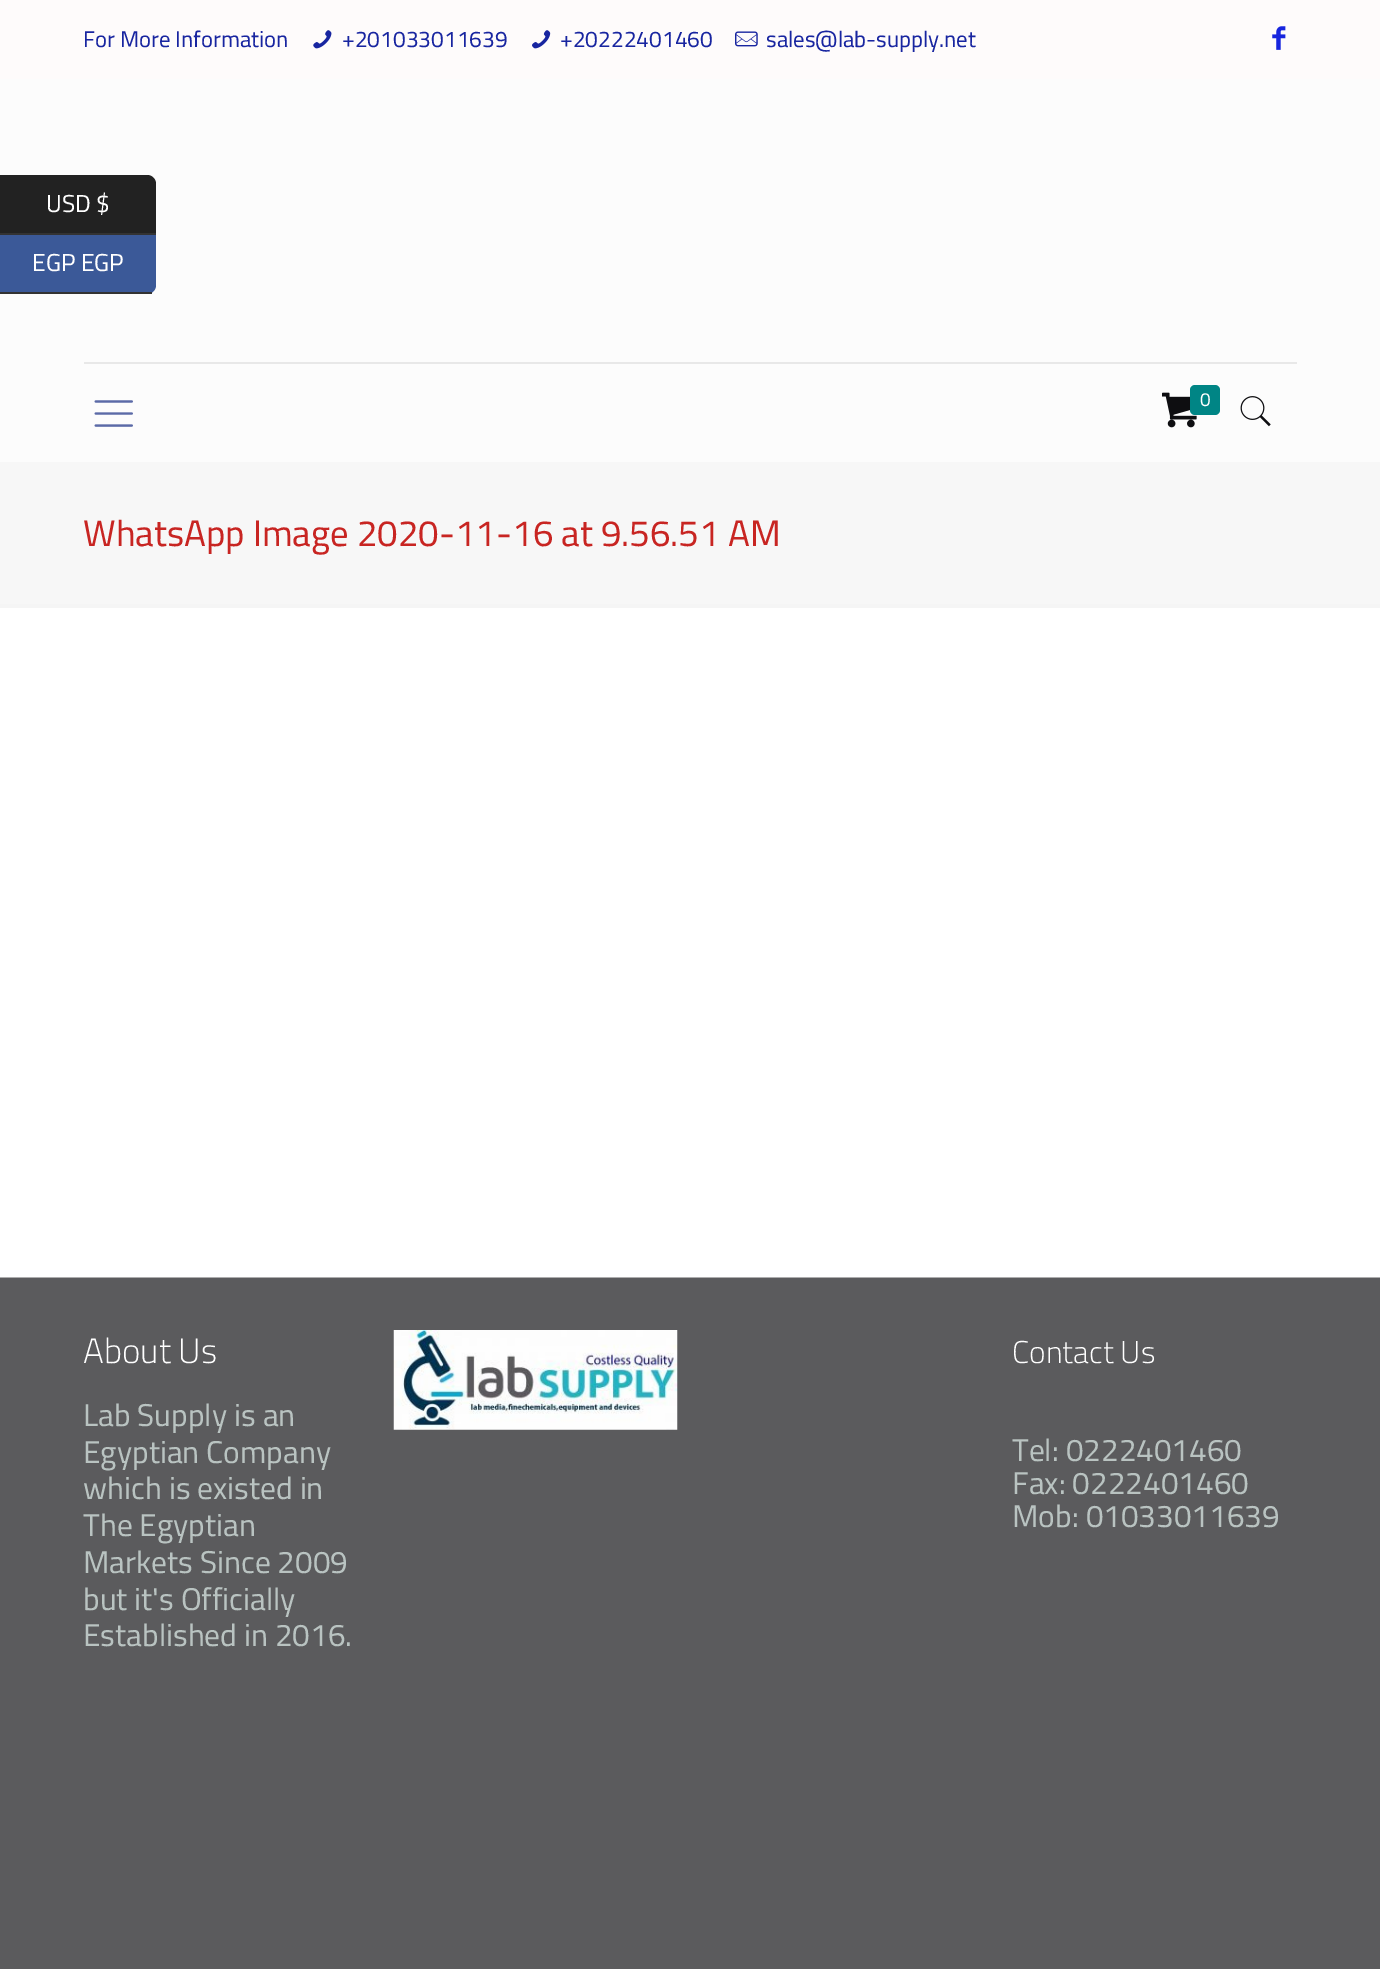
%!PS
<< /PageSize [1380 1969] >> setpagedevice
/roundrect { 5 dict begin { /r /h /w /y /x } { exch def } forall
  x r add y moveto x w add y 2 copy h add r arct x w add y h add x 1 index r arct
  x y h add x y r arct x y 2 copy exch w add exch r arct closepath end } def
/picture { 5 dict begin { /h /w /y /x /name } { exch def } forall
  gsave x y translate w h scale
  w h 8 [w 0 0 h 0 0] name (r) file false 3 colorimage grestore end } def
0 1969 translate 1 -1 scale
4 setmiterlimit
1 setgray
0 0 1380 1969 rectfill
0.988 setgray
0 79 1380 383 rectfill
0.133 setgray
newpath 0 175 moveto 147 175 lineto 152 175 156 179 156 184 curveto 156 235 lineto 0 235 lineto closepath fill
0.2 setgray
0 233 156 2 rectfill
/Cairo-Regular [24.5 0 0 -24.5 0 0] selectfont
1 setgray
46 212 moveto (USD $) show
0.231 0.349 0.596 setrgbcolor
newpath 0 235 moveto 156 235 lineto 156 285 lineto 156 290 152 294 147 294 curveto 0 294 lineto closepath fill
0.2 setgray
0 292 152 2 rectfill
1 setgray
32 271 moveto (EGP EGP) show
0.996 0.984 0.984 setrgbcolor
0 0 1380 79 rectfill
/Cairo-Regular [22.75 0 0 -22.75 0 0] selectfont
0.094 0.145 0.627 setrgbcolor
83 47 moveto (For More Information) show
(img1.rgb) 313 30 19 19 picture
342 47 moveto (+201033011639) show
(img2.rgb) 532 30 19 19 picture
560 47 moveto (+20222401460) show
(img3.rgb) 735 31 23 16 picture
766 47 moveto (sales@lab-supply.net) show
(img4.rgb) 1272 26 14 24 picture
0.91 setgray
84 362 1213 2 rectfill
(img5.rgb) 94 400 39 27 picture
(img6.rgb) 1162 392 35 36 picture
0 0.522 0.522 setrgbcolor
1190 385 30 30 5 roundrect fill
/Cairo-Regular [19 0 0 -19 0 0] selectfont
1 setgray
1200 406 moveto (0) show
(img7.rgb) 1240 396 31 31 picture
0.969 setgray
0 462 1380 142 rectfill
/Cairo-Regular [36.75 0 0 -36.75 0 0] selectfont
0.784 0.145 0.133 setrgbcolor
83 546 moveto (WhatsApp Image 2020-11-16 at 9.56.51 AM) show
0.961 setgray
0 604 1380 4 rectfill
0.357 0.357 0.365 setrgbcolor
0 1278 1380 691 rectfill
0.678 0.678 0.682 setrgbcolor
0 1277 1380 1 rectfill
/Cairo-Light [35 0 0 -35 0 0] selectfont
1 setgray
83 1363 moveto (About Us) show
/Cairo-Regular [31.5 0 0 -31.5 0 0] selectfont
0.725 0.765 0.757 setrgbcolor
83 1426 moveto (Lab Supply is an) show
83 1463 moveto (Egyptian Company) show
83 1499 moveto (which is existed in) show
83 1536 moveto (The Egyptian) show
83 1573 moveto (Markets Since 2009) show
83 1610 moveto (but it's Officially) show
83 1646 moveto (Established in 2016.) show
(img8.rgb) 393 1330 285 100 picture
/Cairo-Light [31.5 0 0 -31.5 0 0] selectfont
1 setgray
1012 1363 moveto (Contact Us) show
/Cairo-Regular [31.5 0 0 -31.5 0 0] selectfont
0.725 0.765 0.757 setrgbcolor
1012 1461 moveto (Tel: 0222401460) show
1012 1494 moveto (Fax: 0222401460) show
1012 1527 moveto (Mob: 01033011639) show
showpage
